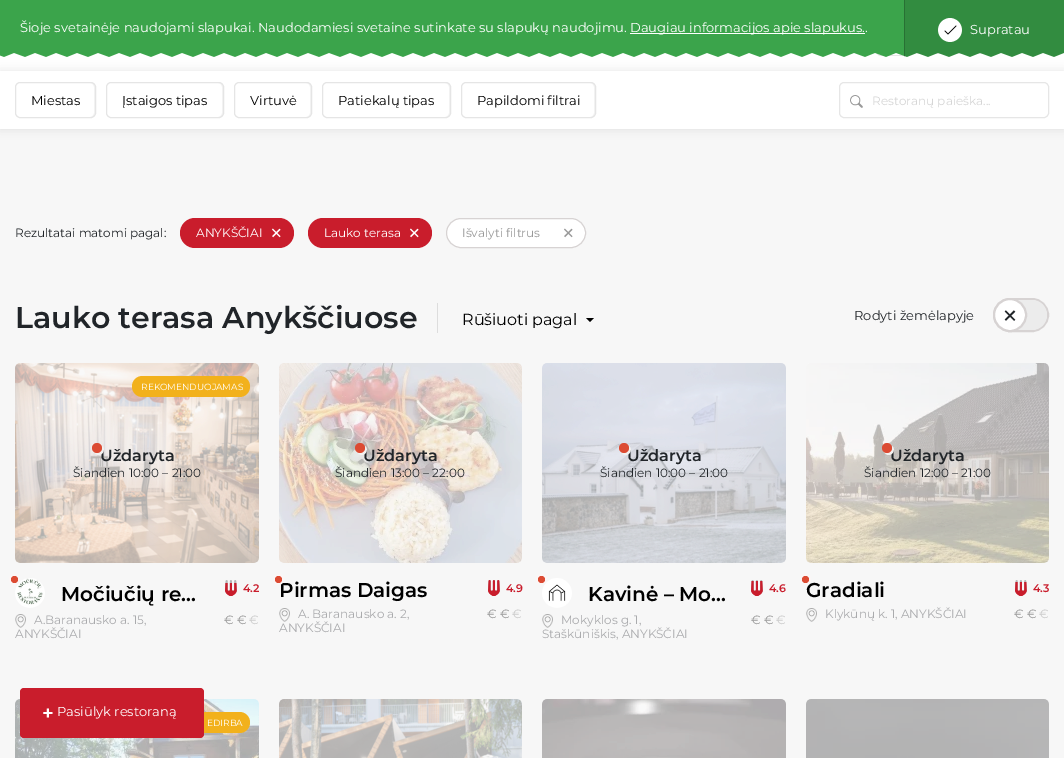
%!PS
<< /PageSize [1064 758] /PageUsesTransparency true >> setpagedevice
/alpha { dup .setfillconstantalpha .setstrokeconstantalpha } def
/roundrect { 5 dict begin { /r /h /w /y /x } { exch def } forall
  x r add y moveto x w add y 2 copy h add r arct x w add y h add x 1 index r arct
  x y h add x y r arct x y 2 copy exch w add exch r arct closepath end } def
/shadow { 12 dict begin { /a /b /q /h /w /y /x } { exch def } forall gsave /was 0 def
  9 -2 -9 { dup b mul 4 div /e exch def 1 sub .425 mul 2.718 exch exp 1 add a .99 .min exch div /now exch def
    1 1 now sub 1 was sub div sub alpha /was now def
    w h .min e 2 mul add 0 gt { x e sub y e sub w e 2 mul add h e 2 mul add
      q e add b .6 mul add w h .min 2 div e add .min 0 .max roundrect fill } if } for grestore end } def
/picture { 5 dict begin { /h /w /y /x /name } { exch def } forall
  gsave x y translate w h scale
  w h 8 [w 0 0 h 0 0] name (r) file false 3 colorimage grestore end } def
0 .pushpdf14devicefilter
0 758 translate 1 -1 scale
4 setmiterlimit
0.969 setgray
0 0 1064 758 rectfill
1 setgray
0 53 1064 18 rectfill
0 setgray
0 71 1064 58 0 5 0.1 shadow
0.898 setgray
newpath 881 17 moveto 904 17 lineto 904 56 lineto 881 56 lineto 878 56 876 54 876 51 curveto 876 22 lineto 876 19 878 17 881 17 curveto closepath 881 18 moveto 904 18 lineto 904 55 lineto 881 55 lineto 879 55 877 53 877 51 curveto 877 22 lineto 877 20 879 18 881 18 curveto closepath eofill
0.902 setgray
newpath 917 17 moveto 988 17 lineto 991 17 993 19 993 22 curveto 993 49 lineto 993 52 991 54 988 54 curveto 917 54 lineto closepath 917 18 moveto 988 18 lineto 990 18 992 20 992 22 curveto 992 49 lineto 992 51 990 53 988 53 curveto 917 53 lineto closepath eofill
(img1.rgb) 0 0 1064 57 picture
/Montserrat-Regular [13 0 0 -13 0 0] selectfont
1 setgray
20 32 moveto (Šioje svetainėje naudojami slapukai. Naudodamiesi svetaine sutinkate su slapukų naudojimu.) show
630 33 235 1 rectfill
630 32 moveto (Daugiau informacijos apie slapukus..) show
0.1 alpha
0 setgray
904 0 1 57 rectfill
1 alpha
(img2.rgb) 938 18 24 24 picture
1 setgray
970 34 moveto (Supratau) show
0 71 1064 58 rectfill
0.949 setgray
newpath 90 117 moveto 95.5 117 95 113.5 95 108.5 curveto 95 91.5 lineto 95 86.5 95.5 83 90 83 curveto 92 83 94 85 94 87 curveto 94 113 lineto 94 115 92 117 90 117 curveto closepath fill
0.898 setgray
15.5 82.5 80 35 4.5 roundrect stroke
0 setgray
31 105 moveto (Miestas) show
0.949 setgray
newpath 218 117 moveto 223.5 117 223 113.5 223 108.5 curveto 223 91.5 lineto 223 86.5 223.5 83 218 83 curveto 220 83 222 85 222 87 curveto 222 113 lineto 222 115 220 117 218 117 curveto closepath fill
0.898 setgray
106.5 82.5 117 35 4.5 roundrect stroke
0 setgray
122 105 moveto (Įstaigos tipas) show
0.949 setgray
newpath 306 117 moveto 311.5 117 311 113.5 311 108.5 curveto 311 91.5 lineto 311 86.5 311.5 83 306 83 curveto 308 83 310 85 310 87 curveto 310 113 lineto 310 115 308 117 306 117 curveto closepath fill
0.898 setgray
234.5 82.5 77 35 4.5 roundrect stroke
0 setgray
250 105 moveto (Virtuvė) show
0.949 setgray
newpath 445 117 moveto 450.5 117 450 113.5 450 108.5 curveto 450 91.5 lineto 450 86.5 450.5 83 445 83 curveto 447 83 449 85 449 87 curveto 449 113 lineto 449 115 447 117 445 117 curveto closepath fill
0.898 setgray
322.5 82.5 128 35 4.5 roundrect stroke
0 setgray
338 105 moveto (Patiekalų tipas) show
0.949 setgray
newpath 590 117 moveto 595.5 117 595 113.5 595 108.5 curveto 595 91.5 lineto 595 86.5 595.5 83 590 83 curveto 592 83 594 85 594 87 curveto 594 113 lineto 594 115 592 117 590 117 curveto closepath fill
0.898 setgray
461.5 82.5 134 35 4.5 roundrect stroke
0 setgray
477 105 moveto (Papildomi filtrai) show
0.902 setgray
839.5 82.5 209 35 4.5 roundrect stroke
(img3.rgb) 850 95 13 13 picture
/Montserrat-Regular [12 0 0 -12 0 0] selectfont
0.839 setgray
872 105 moveto (Restoranų paieška...) show
0.129 0.145 0.161 setrgbcolor
15 237 moveto (Rezultatai matomi pagal:) show
0.788 0.114 0.173 setrgbcolor
180 218 114 30 15 roundrect fill
1 setgray
196 237 moveto (ANYKŠČIAI) show
/Montserrat-Regular [25 0 0 -25 0 0] selectfont
gsave 265 234 translate 45 rotate 0 0 moveto (+) show grestore
0.788 0.114 0.173 setrgbcolor
308 218 124 30 15 roundrect fill
/Montserrat-Regular [12 0 0 -12 0 0] selectfont
1 setgray
324 237 moveto (Lauko terasa) show
/Montserrat-Regular [25 0 0 -25 0 0] selectfont
gsave 403 234 translate 45 rotate 0 0 moveto (+) show grestore
446.5 218.5 139 29 14.5 roundrect gsave fill grestore
0.843 0.827 0.827 setrgbcolor
stroke
/Montserrat-Regular [12 0 0 -12 0 0] selectfont
0.6 setgray
462 237 moveto (Išvalyti filtrus) show
/Montserrat-Regular [25 0 0 -25 0 0] selectfont
gsave 557 234 translate 45 rotate 0 0 moveto (+) show grestore
0.867 setgray
437 303 1 30 rectfill
/Montserrat-SemiBold [30 0 0 -30 0 0] selectfont
0.129 0.145 0.161 setrgbcolor
15 328 moveto (Lauko terasa Anykščiuose) show
/Montserrat-Regular [16 0 0 -16 0 0] selectfont
0 setgray
462 325 moveto (Rūšiuoti pagal) show
newpath 586 318 moveto 594 318 lineto 590 322 lineto closepath fill
/Montserrat-Regular [13 0 0 -13 0 0] selectfont
0.129 0.145 0.161 setrgbcolor
854 320 moveto (Rodyti žemėlapyje) show
0.843 0.827 0.827 setrgbcolor
2 setlinewidth
994 299 54 32 16 roundrect stroke
0.925 setgray
995 300 52 30 15 roundrect fill
1 setgray
newpath 1010 315 16 0 360 arc closepath gsave fill grestore
0.843 0.827 0.827 setrgbcolor
stroke
/Montserrat-Regular [31 0 0 -31 0 0] selectfont
0.129 0.145 0.161 setrgbcolor
gsave 996 317 translate 45 rotate 0 0 moveto (+) show grestore
(img4.rgb) 15 363 244 200 picture
0.949 0.694 0.11 setrgbcolor
132 376 118 21 10.5 roundrect fill
/Montserrat-Regular [9 0 0 -9 0 0] selectfont
1 setgray
141 390 moveto (REKOMENDUOJAMAS) show
/Montserrat-SemiBold [16 0 0 -16 0 0] selectfont
0.129 0.145 0.161 setrgbcolor
100 461 moveto (Uždaryta) show
0.949 0.945 0.941 setrgbcolor
newpath 94 451.5 moveto 94.5 452.5 95.5 454 96.5 454.5 curveto 102 457 106.5 449.5 102 446 curveto 103.5 450.5 98 454.5 94 451.5 curveto closepath fill
0.863 0.294 0.2 setrgbcolor
newpath 97 448 5 0 360 arc closepath fill
/Montserrat-Regular [12 0 0 -12 0 0] selectfont
0.129 0.145 0.161 setrgbcolor
73 477 moveto (Šiandien 10:00 – 21:00) show
(img5.rgb) 15 578 30 30 picture
0.984 0.965 0.965 setrgbcolor
newpath 14.5 579.5 5.5 0 360 arc closepath fill
0.863 0.294 0.2 setrgbcolor
newpath 14.5 579.5 3.5 0 360 arc closepath fill
/Montserrat-SemiBold [20 0 0 -20 0 0] selectfont
0 setgray
61 601 moveto (Močiučių re…) show
(img6.rgb) 225 580 12 16 picture
(img7.rgb) 225 583 12 13 picture
/Montserrat-SemiBold [11 0 0 -11 0 0] selectfont
0.788 0.114 0.173 setrgbcolor
243 592 moveto (4.2) show
(img8.rgb) 15 614 11 14 picture
/Montserrat-Regular [12 0 0 -12 0 0] selectfont
0.667 0.671 0.678 setrgbcolor
34 624 moveto (A.Baranausko a. 15,) show
15 638 moveto (ANYKŠČIAI) show
0.6 setgray
224 624 moveto (€ €) show
0.796 setgray
249 624 moveto (€) show
(img9.rgb) 279 363 243 200 picture
/Montserrat-SemiBold [16 0 0 -16 0 0] selectfont
0.129 0.145 0.161 setrgbcolor
363 461 moveto (Uždaryta) show
0.949 0.945 0.941 setrgbcolor
newpath 357 451.5 moveto 357.5 452.5 358.5 454 359.5 454.5 curveto 365 457 369.5 449.5 365 446 curveto 366.5 450.5 361 454.5 357 451.5 curveto closepath fill
0.863 0.294 0.2 setrgbcolor
newpath 360 448 5 0 360 arc closepath fill
/Montserrat-Regular [12 0 0 -12 0 0] selectfont
0.129 0.145 0.161 setrgbcolor
335 477 moveto (Šiandien 13:00 – 22:00) show
/Montserrat-SemiBold [20 0 0 -20 0 0] selectfont
0 setgray
279 597 moveto (Pirmas Daigas) show
0.984 0.965 0.965 setrgbcolor
newpath 278.5 579.5 5.5 0 360 arc closepath fill
0.863 0.294 0.2 setrgbcolor
newpath 278.5 579.5 3.5 0 360 arc closepath fill
(img6.rgb) 488 580 12 16 picture
(img10.rgb) 488 580 12 16 picture
/Montserrat-SemiBold [11 0 0 -11 0 0] selectfont
0.788 0.114 0.173 setrgbcolor
506 592 moveto (4.9) show
(img8.rgb) 279 608 11 14 picture
/Montserrat-Regular [12 0 0 -12 0 0] selectfont
0.667 0.671 0.678 setrgbcolor
298 618 moveto (A. Baranausko a. 2,) show
279 632 moveto (ANYKŠČIAI) show
0.6 setgray
487 618 moveto (€ €) show
0.796 setgray
512 618 moveto (€) show
(img11.rgb) 542 363 244 200 picture
/Montserrat-SemiBold [16 0 0 -16 0 0] selectfont
0.129 0.145 0.161 setrgbcolor
627 461 moveto (Uždaryta) show
0.949 0.945 0.941 setrgbcolor
newpath 621 451.5 moveto 621.5 452.5 622.5 454 623.5 454.5 curveto 629 457 633.5 449.5 629 446 curveto 630.5 450.5 625 454.5 621 451.5 curveto closepath fill
0.863 0.294 0.2 setrgbcolor
newpath 624 448 5 0 360 arc closepath fill
/Montserrat-Regular [12 0 0 -12 0 0] selectfont
0.129 0.145 0.161 setrgbcolor
600 477 moveto (Šiandien 10:00 – 21:00) show
(img12.rgb) 542 578 30 30 picture
0.984 0.965 0.965 setrgbcolor
newpath 541.5 579.5 5.5 0 360 arc closepath fill
0.863 0.294 0.2 setrgbcolor
newpath 541.5 579.5 3.5 0 360 arc closepath fill
/Montserrat-SemiBold [20 0 0 -20 0 0] selectfont
0 setgray
588 601 moveto (Kavinė – Mo…) show
(img6.rgb) 751 580 12 16 picture
(img13.rgb) 751 581 12 15 picture
/Montserrat-SemiBold [11 0 0 -11 0 0] selectfont
0.788 0.114 0.173 setrgbcolor
769 592 moveto (4.6) show
(img8.rgb) 542 614 11 14 picture
/Montserrat-Regular [12 0 0 -12 0 0] selectfont
0.667 0.671 0.678 setrgbcolor
561 624 moveto (Mokyklos g. 1,) show
542 638 moveto (Staškūniškis, ANYKŠČIAI) show
0.6 setgray
751 624 moveto (€ €) show
0.796 setgray
776 624 moveto (€) show
(img14.rgb) 806 363 243 200 picture
/Montserrat-SemiBold [16 0 0 -16 0 0] selectfont
0.129 0.145 0.161 setrgbcolor
890 461 moveto (Uždaryta) show
0.949 0.945 0.941 setrgbcolor
newpath 884 451.5 moveto 884.5 452.5 885.5 454 886.5 454.5 curveto 892 457 896.5 449.5 892 446 curveto 893.5 450.5 888 454.5 884 451.5 curveto closepath fill
0.863 0.294 0.2 setrgbcolor
newpath 887 448 5 0 360 arc closepath fill
/Montserrat-Regular [12 0 0 -12 0 0] selectfont
0.129 0.145 0.161 setrgbcolor
864 477 moveto (Šiandien 12:00 – 21:00) show
/Montserrat-SemiBold [20 0 0 -20 0 0] selectfont
0 setgray
806 597 moveto (Gradiali) show
0.984 0.965 0.965 setrgbcolor
newpath 805.5 579.5 5.5 0 360 arc closepath fill
0.863 0.294 0.2 setrgbcolor
newpath 805.5 579.5 3.5 0 360 arc closepath fill
(img6.rgb) 1015 580 12 16 picture
(img15.rgb) 1015 582 12 14 picture
/Montserrat-SemiBold [11 0 0 -11 0 0] selectfont
0.788 0.114 0.173 setrgbcolor
1033 592 moveto (4.3) show
(img8.rgb) 806 608 11 14 picture
/Montserrat-Regular [12 0 0 -12 0 0] selectfont
0.667 0.671 0.678 setrgbcolor
825 618 moveto (Klykūnų k. 1, ANYKŠČIAI) show
0.6 setgray
1014 618 moveto (€ €) show
0.796 setgray
1039 618 moveto (€) show
(img16.rgb) 15 699 244 59 picture
0.949 0.694 0.11 setrgbcolor
132 712 118 21 10.5 roundrect fill
/Montserrat-Regular [9 0 0 -9 0 0] selectfont
1 setgray
207 726 moveto (EDIRBA) show
(img17.rgb) 279 699 243 59 picture
(img18.rgb) 542 699 244 59 picture
(img19.rgb) 806 699 243 59 picture
0.788 0.114 0.173 setrgbcolor
20 688 184 50 4 roundrect fill
/Montserrat-SemiBold [20 0 0 -20 0 0] selectfont
1 setgray
42 720 moveto (+) show
/Montserrat-Regular [13 0 0 -13 0 0] selectfont
57 716 moveto (Pasiūlyk restoraną) show
.poppdf14devicefilter showpage
